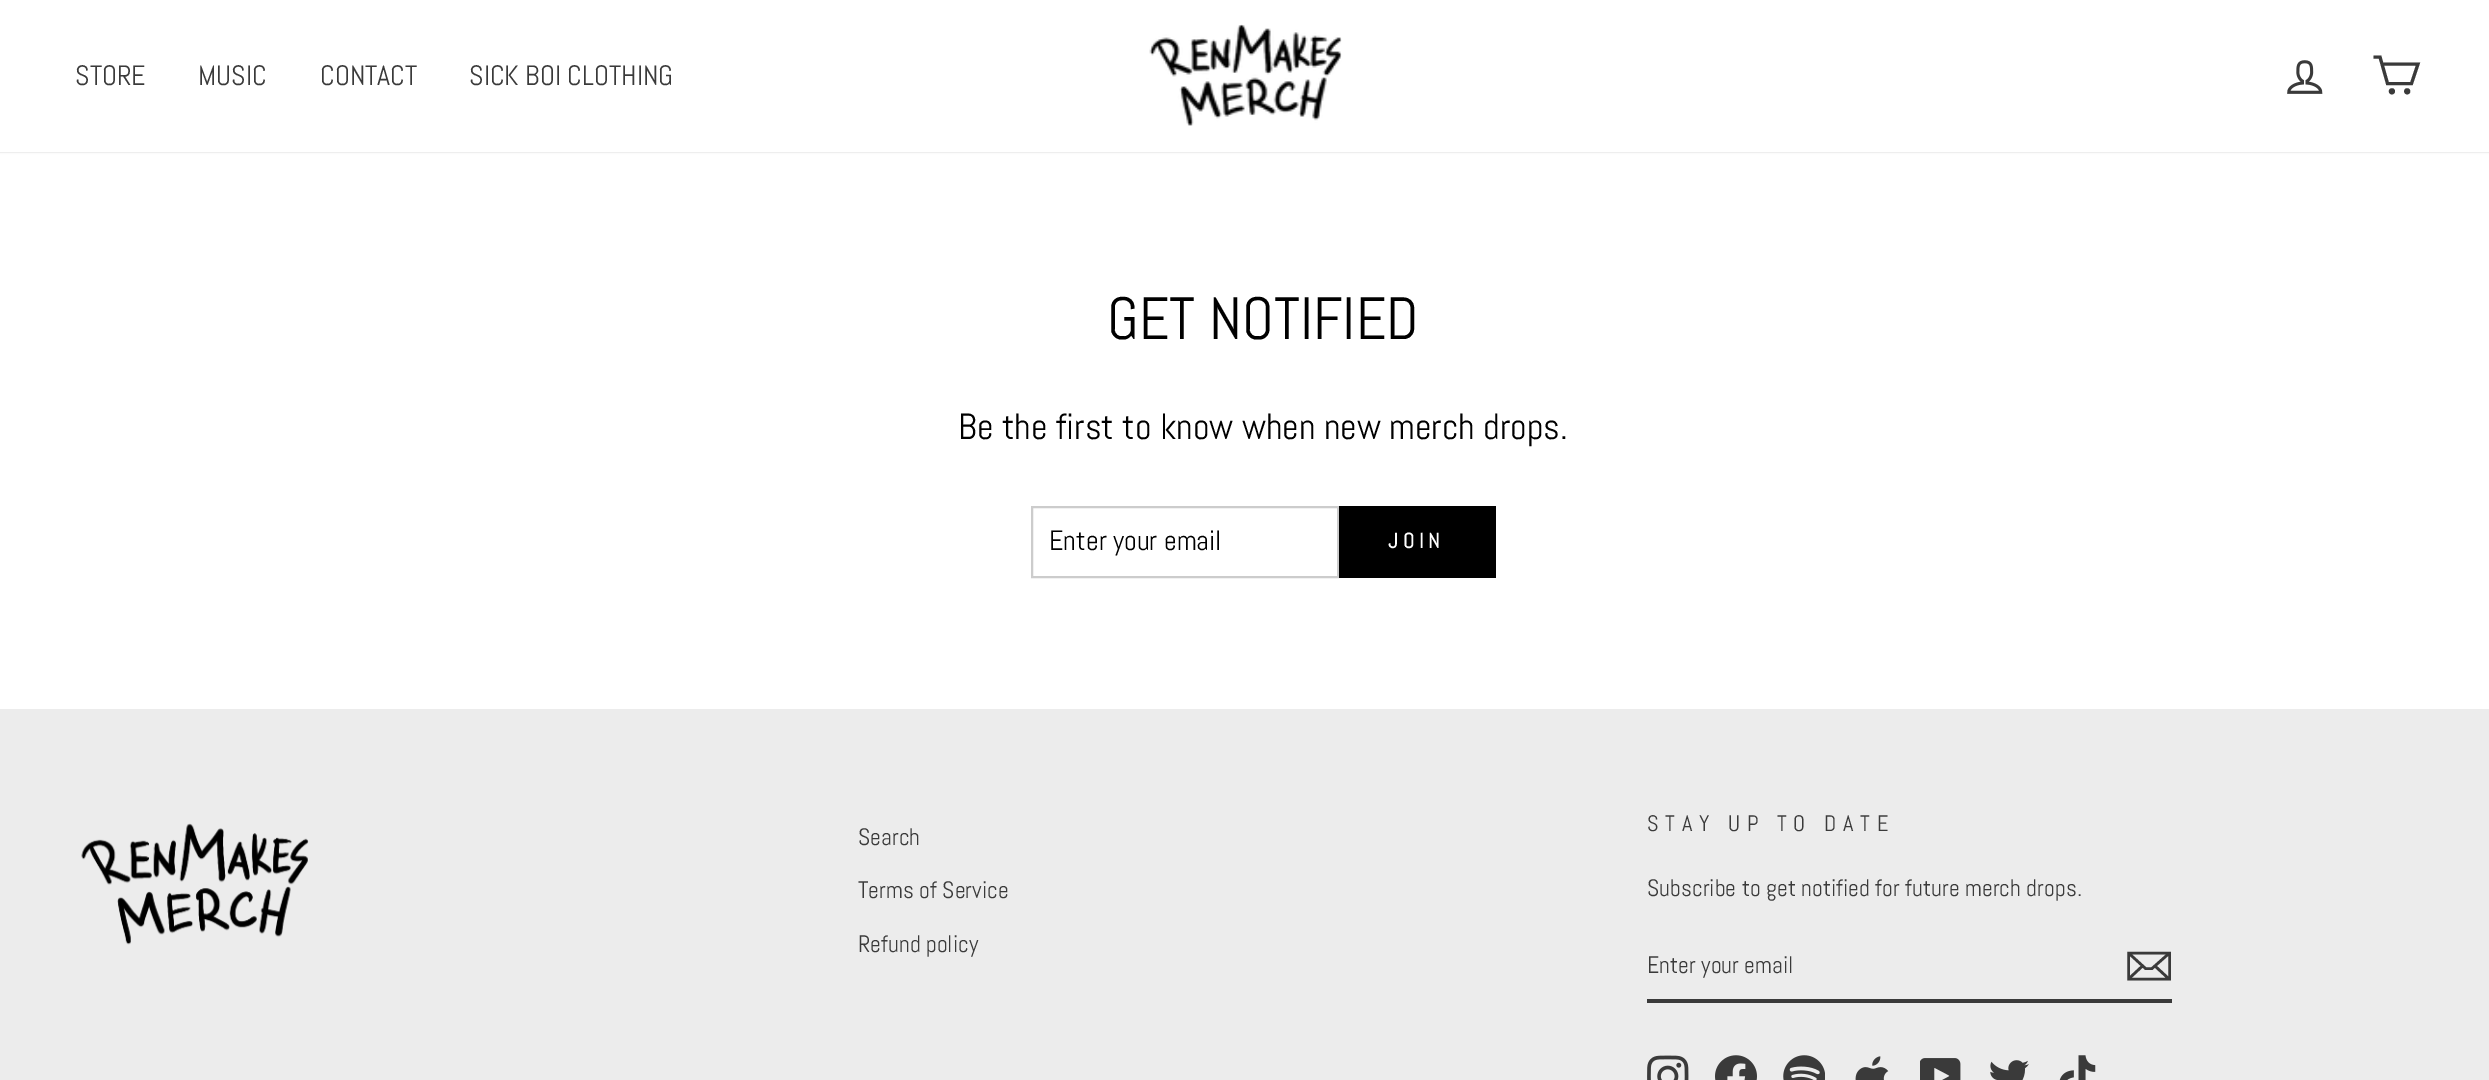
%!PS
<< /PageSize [2489 1080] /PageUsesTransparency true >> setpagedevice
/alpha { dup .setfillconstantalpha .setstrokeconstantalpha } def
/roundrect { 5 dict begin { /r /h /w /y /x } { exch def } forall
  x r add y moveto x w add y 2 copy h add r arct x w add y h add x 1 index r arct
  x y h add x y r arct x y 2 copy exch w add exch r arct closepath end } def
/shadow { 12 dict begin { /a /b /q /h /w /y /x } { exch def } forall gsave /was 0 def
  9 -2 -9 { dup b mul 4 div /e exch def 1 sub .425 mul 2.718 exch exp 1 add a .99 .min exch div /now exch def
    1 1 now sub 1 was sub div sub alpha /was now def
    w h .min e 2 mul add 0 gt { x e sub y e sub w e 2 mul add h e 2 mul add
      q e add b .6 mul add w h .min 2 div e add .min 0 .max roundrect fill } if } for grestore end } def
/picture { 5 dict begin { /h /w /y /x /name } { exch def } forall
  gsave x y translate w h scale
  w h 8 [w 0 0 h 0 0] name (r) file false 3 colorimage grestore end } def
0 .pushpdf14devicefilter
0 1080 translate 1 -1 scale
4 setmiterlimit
1 setgray
0 0 2489 1080 rectfill
0 setgray
0 0 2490 152 0 1 0.2 shadow
1 setgray
0 0 2489 152 rectfill
/Abel-Regular [28 0 0 -28 0 0] selectfont
0.227 setgray
75 85 moveto (STORE) show
198 85 moveto (MUSIC) show
320 85 moveto (CONTACT) show
469 85 moveto (SICK BOI CLOTHING) show
(img1.rgb) 1149 24 193 102 picture
(img2.rgb) 2287 60 36 34 picture
3.1 setlinewidth
newpath 2382 64 moveto 2418 64 lineto 2411.5 83.5 lineto 2387.5 83.5 lineto 2380 57 lineto 2373.5 57 lineto stroke
newpath 2391.9 91.3 1.5 0 360 arc closepath stroke
newpath 2407.2 91.3 1.5 0 360 arc closepath stroke
/Abel-Regular [59.5 0 0 -59.5 0 0] selectfont
0 setgray
1107 339 moveto (GET NOTIFIED) show
/Abel-Regular [36.4 0 0 -36.4 0 0] selectfont
958 439 moveto (Be the first to know when new merch drops.) show
0.8 setgray
2 setlinewidth
1032 507 306 70 rectstroke
/Abel-Regular [28 0 0 -28 0 0] selectfont
0 setgray
1049 550 moveto (Enter your email) show
1339 506 157 72 rectfill
/Abel-Bold [21 0 0 -21 0 0] selectfont
1 setgray
1388 548 moveto 5 0 (JOIN) ashow
0.925 setgray
0 709 2489 371 rectfill
(img3.rgb) 81 823 228 122 picture
/Abel-Regular [23.75 0 0 -23.75 0 0] selectfont
0.227 setgray
858 845 moveto (Search) show
858 898 moveto (Terms of Service) show
858 952 moveto (Refund policy) show
/Abel-Regular [22.4 0 0 -22.4 0 0] selectfont
1647 831 moveto 6.75 0 (STAY UP TO DATE) ashow
/Abel-Regular [23.75 0 0 -23.75 0 0] selectfont
1647 896 moveto (Subscribe to get notified for future merch drops.) show
1647 999 525 4 rectfill
1647 973 moveto (Enter your email) show
2.6 setlinewidth
newpath 2169.5 979 moveto 2128.5 979 lineto 2128.5 953 lineto 2169.5 953 lineto closepath 2128.5 953 moveto 2145.5 968.5 lineto 2152 968.5 lineto 2169.5 953 lineto 2142.5 966 moveto 2129 978.5 lineto 2169 979 moveto 2155 966 lineto stroke
(img4.rgb) 1647 1055 42 25 picture
(img5.rgb) 1715 1055 42 25 picture
(img6.rgb) 1783 1055 42 25 picture
(img7.rgb) 1855 1056 34 24 picture
(img8.rgb) 1920 1058 41 22 picture
(img9.rgb) 1990 1060 39 20 picture
(img10.rgb) 2059 1055 37 25 picture
.poppdf14devicefilter showpage
